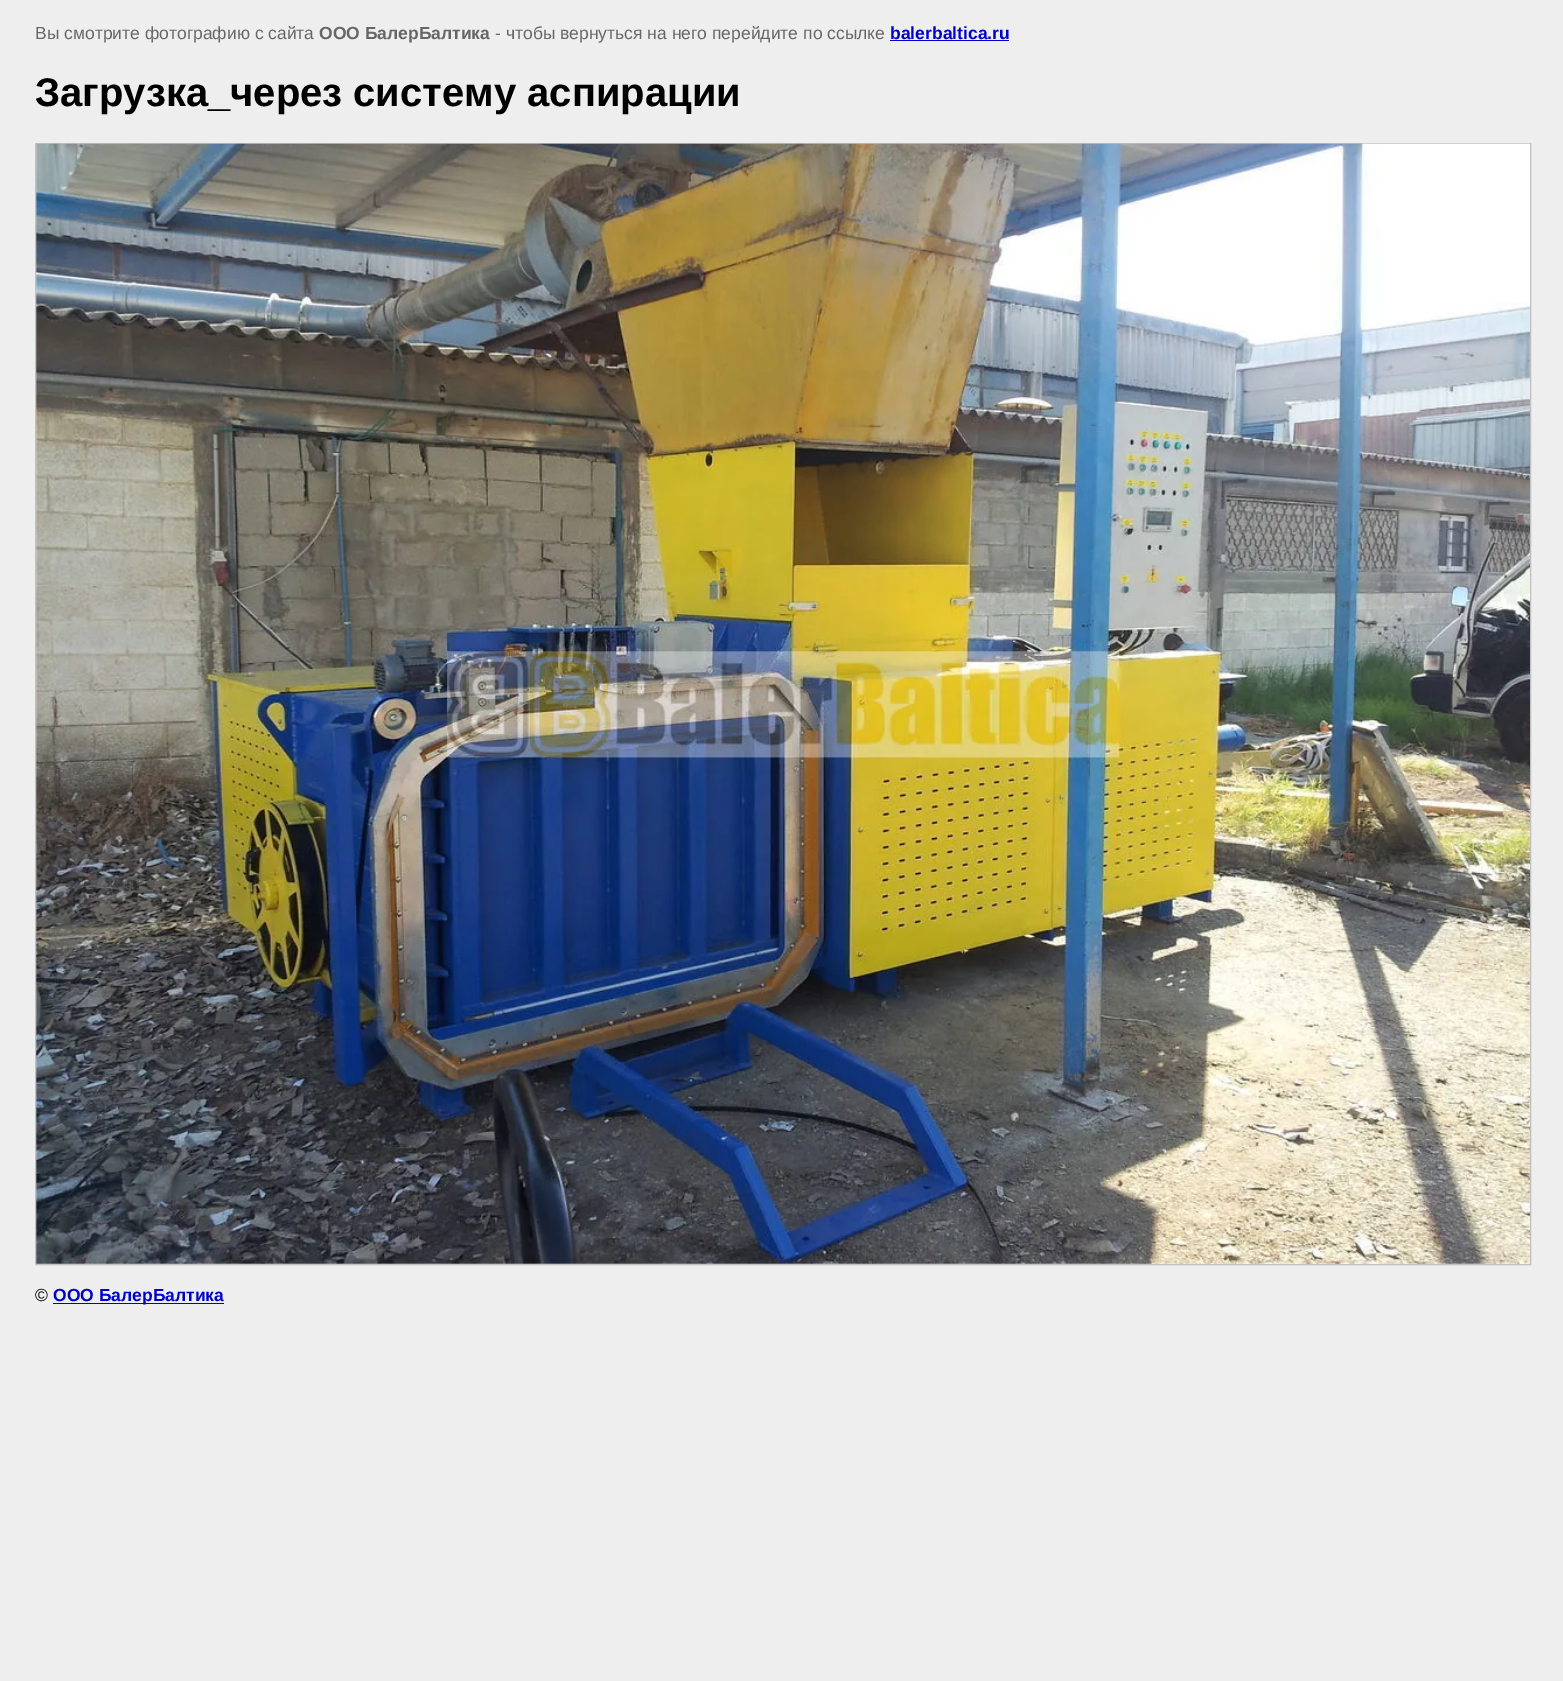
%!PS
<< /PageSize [1563 1681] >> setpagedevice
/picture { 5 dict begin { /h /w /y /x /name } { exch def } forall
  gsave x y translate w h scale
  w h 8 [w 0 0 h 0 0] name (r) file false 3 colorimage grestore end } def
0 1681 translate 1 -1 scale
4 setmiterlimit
0.933 setgray
0 0 1563 1681 rectfill
/LiberationSans-Regular [17.5 0 0 -17.5 0 0] selectfont
0.4 setgray
35 39 moveto (Вы смотрите фотографию с сайта) show
/LiberationSans-Bold [17.5 0 0 -17.5 0 0] selectfont
319 39 moveto (ООО БалерБалтика) show
/LiberationSans-Regular [17.5 0 0 -17.5 0 0] selectfont
495 39 moveto (- чтобы вернуться на него перейдите по ссылке) show
/LiberationSans-Bold [17.5 0 0 -17.5 0 0] selectfont
0 0 0.8 setrgbcolor
890 39 moveto (balerbaltica.ru) show
890 40 119 1 rectfill
/LiberationSans-Bold [40 0 0 -40 0 0] selectfont
0 setgray
35 106 moveto (Загрузка_через систему аспирации) show
0.753 setgray
35.5 143.5 1495 1121 rectstroke
(img1.rgb) 36 143 1494 1121 picture
/LiberationSans-Regular [17.5 0 0 -17.5 0 0] selectfont
0 setgray
35 1301 moveto (©) show
0 0 0.8 setrgbcolor
53 1303 171 1 rectfill
/LiberationSans-Bold [17.5 0 0 -17.5 0 0] selectfont
53 1301 moveto (ООО БалерБалтика) show
showpage
